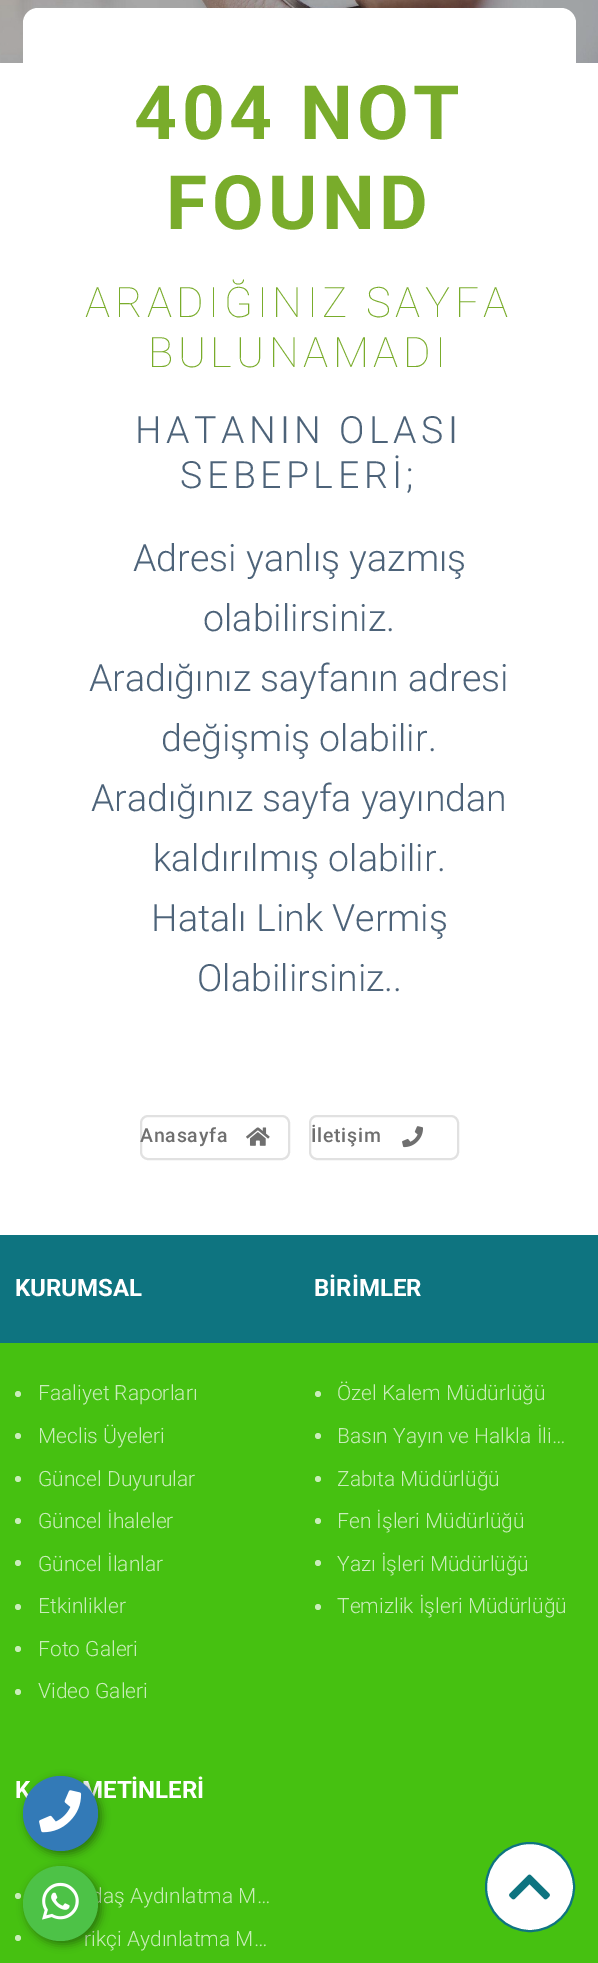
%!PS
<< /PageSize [598 1963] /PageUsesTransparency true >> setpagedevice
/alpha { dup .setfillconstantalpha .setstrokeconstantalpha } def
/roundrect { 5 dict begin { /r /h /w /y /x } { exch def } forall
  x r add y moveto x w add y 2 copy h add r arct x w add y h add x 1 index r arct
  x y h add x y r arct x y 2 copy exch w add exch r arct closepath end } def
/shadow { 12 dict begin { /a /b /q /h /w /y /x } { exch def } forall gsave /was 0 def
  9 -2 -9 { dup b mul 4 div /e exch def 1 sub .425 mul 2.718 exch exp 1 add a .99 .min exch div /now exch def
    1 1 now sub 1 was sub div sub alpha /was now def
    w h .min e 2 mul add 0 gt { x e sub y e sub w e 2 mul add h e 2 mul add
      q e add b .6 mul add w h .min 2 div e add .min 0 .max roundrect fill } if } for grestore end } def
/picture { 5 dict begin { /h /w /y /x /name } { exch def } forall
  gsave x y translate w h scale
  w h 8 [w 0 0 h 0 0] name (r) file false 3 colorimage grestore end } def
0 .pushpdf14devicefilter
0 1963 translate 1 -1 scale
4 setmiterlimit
1 setgray
0 0 598 1963 rectfill
(img1.rgb) 0 0 598 63 picture
23 8 553 1182 15 roundrect fill
/Roboto-Bold [75 0 0 -75 0 0] selectfont
0.475 0.675 0.169 setrgbcolor
134 139 moveto 4.5 0 (404 NOT) ashow
166 229 moveto 4.5 0 (FOUND) ashow
/Roboto-Thin [42 0 0 -42 0 0] selectfont
85 317 moveto 4.5 0 (ARADIĞINIZ SAYFA) ashow
148 367 moveto 4.5 0 (BULUNAMADI) ashow
/Roboto-Light [37.5 0 0 -37.5 0 0] selectfont
0.302 0.388 0.475 setrgbcolor
135 443 moveto 4.5 0 (HATANIN OLASI) ashow
180 488 moveto 4.5 0 (SEBEPLERİ;) ashow
133 571 moveto (Adresi yanlış yazmış) show
203 631 moveto (olabilirsiniz.) show
89 691 moveto (Aradığınız sayfanın adresi) show
161 751 moveto (değişmiş olabilir.) show
91 811 moveto (Aradığınız sayfa yayından) show
153 871 moveto (kaldırılmış olabilir.) show
151 931 moveto (Hatalı Link Vermiş) show
197 991 moveto (Olabilirsiniz..) show
0.882 setgray
2 setlinewidth
141 1116 148 43 7 roundrect stroke
/Roboto-Medium [19.5 0 0 -19.5 0 0] selectfont
0.435 setgray
140 1142 moveto 0.75 0 (Anasayfa) ashow
(img2.rgb) 246 1127 24 19 picture
0.882 setgray
310 1116 148 43 7 roundrect stroke
0.435 setgray
311 1142 moveto 0.75 0 (İletişim) ashow
(img3.rgb) 402 1126 21 22 picture
0.275 0.757 0.067 setrgbcolor
0 1343 598 620 rectfill
0.055 0.455 0.502 setrgbcolor
0 1235 598 108 rectfill
/Roboto-Bold [24 0 0 -24 0 0] selectfont
1 setgray
15 1296 moveto (KURUMSAL) show
0.788 0.929 0.729 setrgbcolor
newpath 18 1394 3 0 360 arc closepath fill
/Roboto-Light [21 0 0 -21 0 0] selectfont
38 1400 moveto (Faaliyet Raporları) show
newpath 18 1436 3 0 360 arc closepath fill
38 1443 moveto (Meclis Üyeleri) show
newpath 18 1479 3 0 360 arc closepath fill
38 1486 moveto (Güncel Duyurular) show
newpath 18 1521 3 0 360 arc closepath fill
38 1528 moveto (Güncel İhaleler) show
newpath 18 1563 3 0 360 arc closepath fill
38 1571 moveto (Güncel İlanlar) show
newpath 18 1607 3 0 360 arc closepath fill
38 1613 moveto (Etkinlikler) show
newpath 18 1649 3 0 360 arc closepath fill
38 1656 moveto (Foto Galeri) show
newpath 18 1692 3 0 360 arc closepath fill
38 1698 moveto (Video Galeri) show
/Roboto-Bold [24 0 0 -24 0 0] selectfont
1 setgray
314 1296 moveto (BİRİMLER) show
0.788 0.929 0.729 setrgbcolor
newpath 318 1394 3 0 360 arc closepath fill
/Roboto-Light [21 0 0 -21 0 0] selectfont
337 1400 moveto (Özel Kalem Müdürlüğü) show
newpath 318 1436 3 0 360 arc closepath fill
337 1443 moveto (Basın Yayın ve Halkla İli…) show
newpath 318 1479 3 0 360 arc closepath fill
337 1486 moveto (Zabıta Müdürlüğü) show
newpath 318 1521 3 0 360 arc closepath fill
337 1528 moveto (Fen İşleri Müdürlüğü) show
newpath 318 1563 3 0 360 arc closepath fill
337 1571 moveto (Yazı İşleri Müdürlüğü) show
newpath 318 1607 3 0 360 arc closepath fill
337 1613 moveto (Temizlik İşleri Müdürlüğü) show
/Roboto-Bold [24 0 0 -24 0 0] selectfont
1 setgray
15 1798 moveto (K) show
82 1798 moveto (METİNLERİ) show
0.788 0.929 0.729 setrgbcolor
newpath 18 1896 3 0 360 arc closepath fill
/Roboto-Light [21 0 0 -21 0 0] selectfont
91 1903 moveto (daş Aydınlatma M…) show
newpath 18 1938 3 0 360 arc closepath fill
84 1946 moveto (rikçi Aydınlatma M…) show
0 setgray
26 1779 75 75 37.5 4.5 0.4 shadow
0.2 0.478 0.718 setrgbcolor
newpath 60.5 1813.5 37.5 0 360 arc closepath fill
(img4.rgb) 39 1790 43 43 picture
0 setgray
26 1869 75 75 37.5 4.5 0.4 shadow
0.302 0.761 0.278 setrgbcolor
newpath 60.5 1903.5 37.5 0 360 arc closepath fill
(img5.rgb) 42 1882 37 38 picture
1 setgray
newpath 530 1887 44 0 360 arc closepath gsave fill grestore
0.055 0.455 0.502 setrgbcolor
stroke
(img6.rgb) 509 1874 41 26 picture
.poppdf14devicefilter showpage
